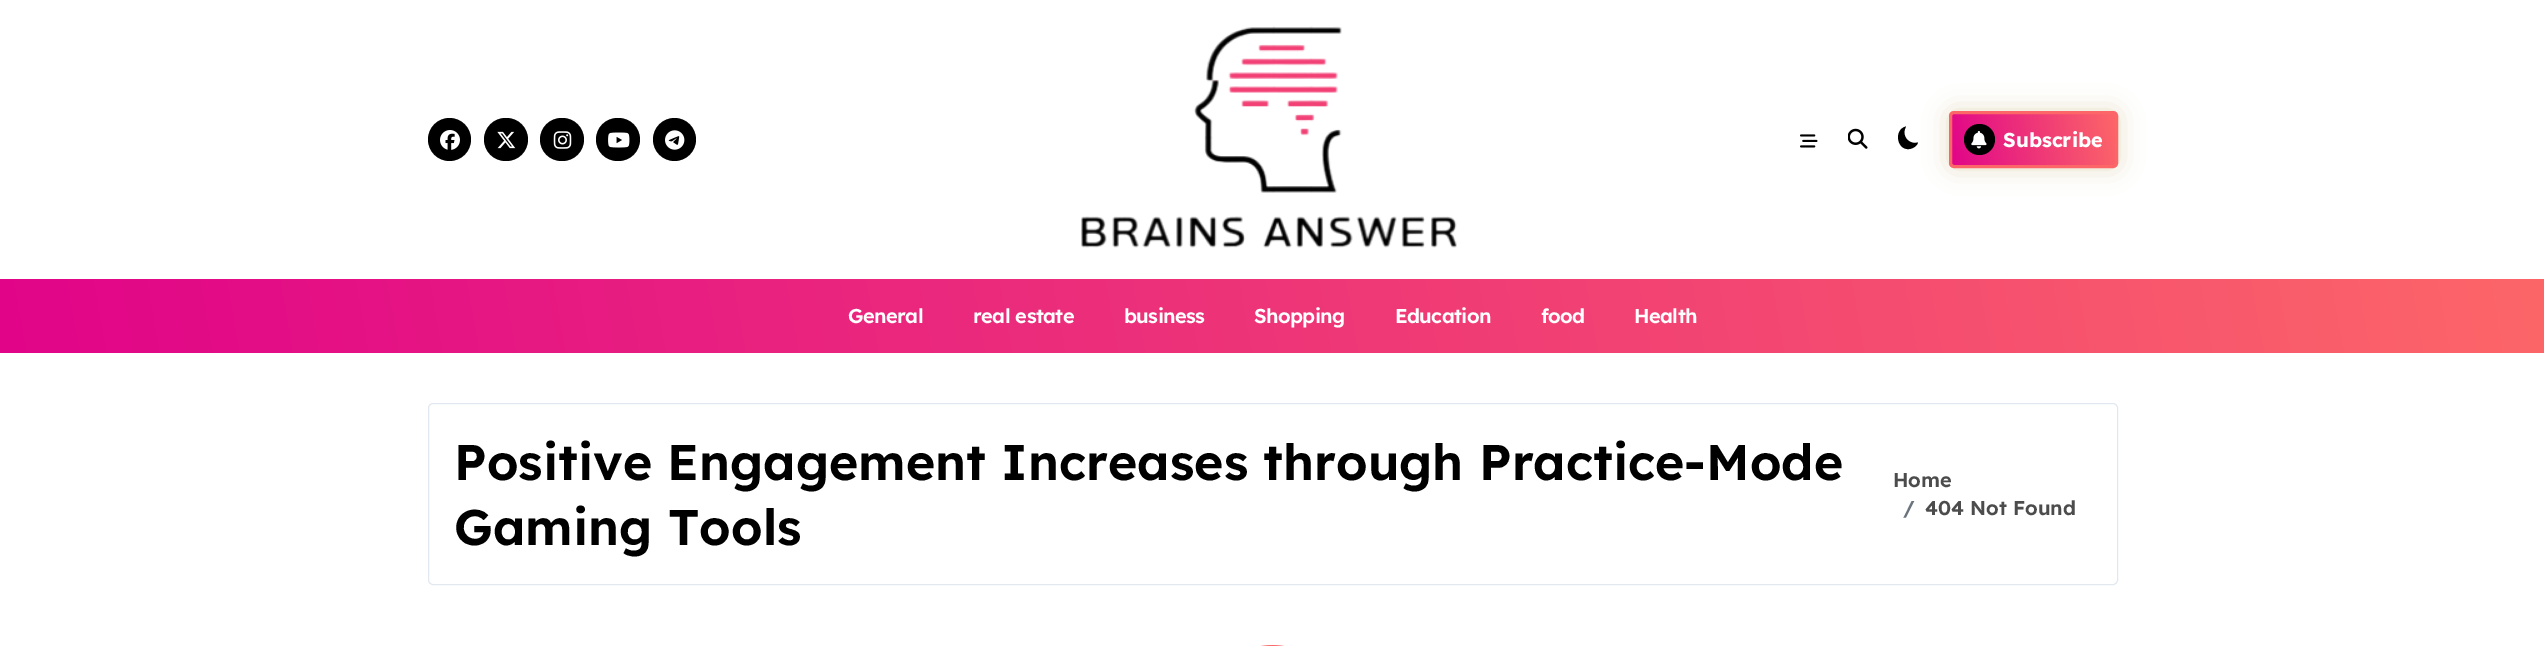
%!PS
<< /PageSize [2544 646] /PageUsesTransparency true >> setpagedevice
/alpha { dup .setfillconstantalpha .setstrokeconstantalpha } def
/roundrect { 5 dict begin { /r /h /w /y /x } { exch def } forall
  x r add y moveto x w add y 2 copy h add r arct x w add y h add x 1 index r arct
  x y h add x y r arct x y 2 copy exch w add exch r arct closepath end } def
/shadow { 12 dict begin { /a /b /q /h /w /y /x } { exch def } forall gsave /was 0 def
  9 -2 -9 { dup b mul 4 div /e exch def 1 sub .425 mul 2.718 exch exp 1 add a .99 .min exch div /now exch def
    1 1 now sub 1 was sub div sub alpha /was now def
    w h .min e 2 mul add 0 gt { x e sub y e sub w e 2 mul add h e 2 mul add
      q e add b .6 mul add w h .min 2 div e add .min 0 .max roundrect fill } if } for grestore end } def
/picture { 5 dict begin { /h /w /y /x /name } { exch def } forall
  gsave x y translate w h scale
  w h 8 [w 0 0 h 0 0] name (r) file false 3 colorimage grestore end } def
0 .pushpdf14devicefilter
0 646 translate 1 -1 scale
4 setmiterlimit
1 setgray
0 0 2544 646 rectfill
0 setgray
newpath 449.5 139.5 21.5 0 360 arc closepath fill
(img1.rgb) 440 130 20 20 picture
484 118 44 43 21.5 roundrect fill
(img2.rgb) 497 131 19 18 picture
540 118 44 43 21.5 roundrect fill
(img3.rgb) 553 131 19 18 picture
596 118 44 43 21.5 roundrect fill
(img4.rgb) 608 132 22 16 picture
newpath 674.5 139.5 21.5 0 360 arc closepath fill
(img5.rgb) 665 130 20 20 picture
(img6.rgb) 1081 26 376 222 picture
(img7.rgb) 1800 134 18 14 picture
(img8.rgb) 1848 128 20 21 picture
newpath 1918 142.5 moveto 1908.5 145 1901 135.5 1906 126.5 curveto 1892.5 130 1897.5 153 1911.5 148.5 curveto 1914.5 147.5 1917 145.5 1918 142.5 curveto closepath fill
0.757 0.639 0.384 setrgbcolor
1949 111 169 57 5 12.5 0.4 shadow
gsave newpath 1952 114 moveto 2115 114 lineto 2115 165 lineto 1952 165 lineto closepath clip newpath
<< /ShadingType 2 /ColorSpace /DeviceRGB /Coords [2117 125 1949 154] /Extend [true true] /Function << /FunctionType 2 /Domain [0 1] /C0 [0.988 0.4 0.408] /C1 [0.882 0.016 0.537] /N 1 >> >> shfill grestore
0.988 0.4 0.408 setrgbcolor
3 setlinewidth
1950.5 112.5 166 54 3.5 roundrect stroke
0 setgray
newpath 1979.5 139.5 15.5 0 360 arc closepath fill
(img9.rgb) 1971 131 16 18 picture
/Lexend-Bold [20 0 0 -20 0 0] selectfont
1 setgray
2003 147 moveto (Subscribe) show
gsave newpath 0 279 moveto 2544 279 lineto 2544 353 lineto 0 353 lineto closepath clip newpath
<< /ShadingType 2 /ColorSpace /DeviceRGB /Coords [2513 97 32 534] /Extend [true true] /Function << /FunctionType 2 /Domain [0 1] /C0 [0.988 0.4 0.408] /C1 [0.882 0.016 0.537] /N 1 >> >> shfill grestore
/Lexend-SemiBold [20 0 0 -20 0 0] selectfont
848 323 moveto -0.6 0 (General) ashow
973 323 moveto -0.6 0 (real estate) ashow
1124 323 moveto -0.6 0 (business) ashow
1254 323 moveto -0.6 0 (Shopping) ashow
1395 323 moveto -0.6 0 (Education) ashow
1541 323 moveto -0.6 0 (food) ashow
1634 323 moveto -0.6 0 (Health) ashow
0.886 0.91 0.941 setrgbcolor
1 setlinewidth
428.5 403.5 1689 181 4.5 roundrect stroke
/Lexend-SemiBold [50 0 0 -50 0 0] selectfont
0 setgray
454 480 moveto (Positive Engagement Increases through Practice-Mode) show
454 545 moveto (Gaming Tools) show
/Lexend-SemiBold [20 0 0 -20 0 0] selectfont
0.298 setgray
1893 487 moveto (Home) show
0.424 0.459 0.49 setrgbcolor
1903 515 moveto (/) show
0.298 setgray
1925 515 moveto (404 Not Found) show
(img10.rgb) 1261 645 23 1 picture
.poppdf14devicefilter showpage
